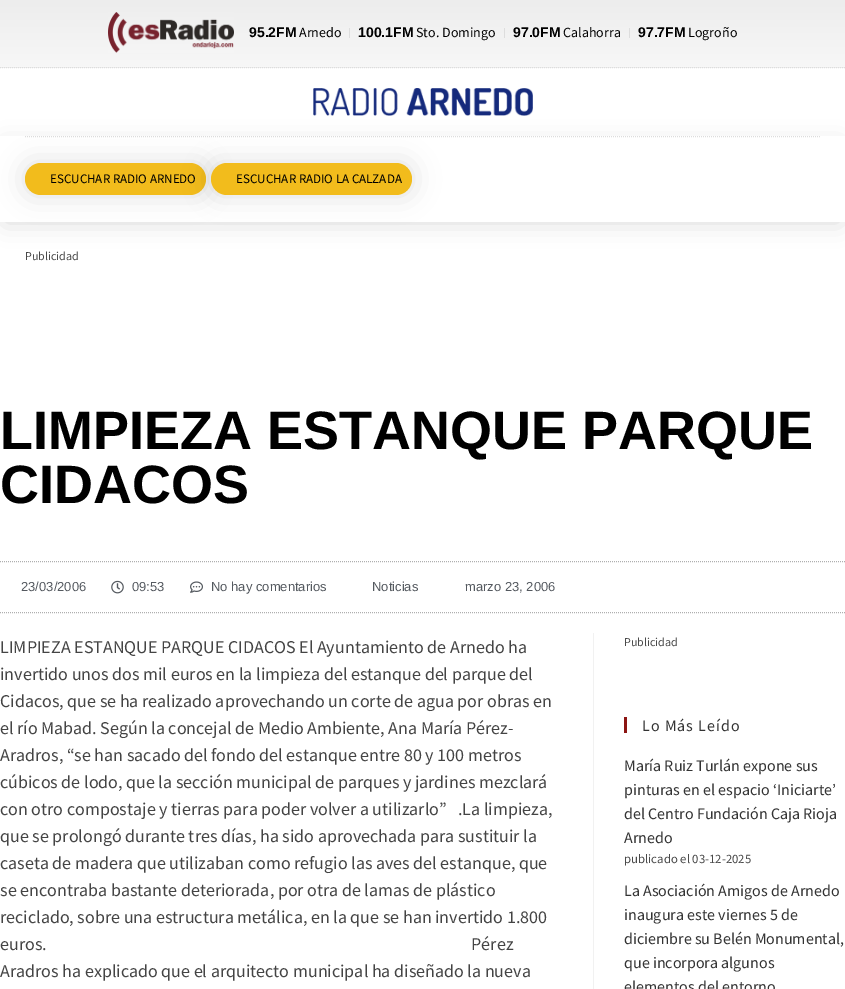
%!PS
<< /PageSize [845 989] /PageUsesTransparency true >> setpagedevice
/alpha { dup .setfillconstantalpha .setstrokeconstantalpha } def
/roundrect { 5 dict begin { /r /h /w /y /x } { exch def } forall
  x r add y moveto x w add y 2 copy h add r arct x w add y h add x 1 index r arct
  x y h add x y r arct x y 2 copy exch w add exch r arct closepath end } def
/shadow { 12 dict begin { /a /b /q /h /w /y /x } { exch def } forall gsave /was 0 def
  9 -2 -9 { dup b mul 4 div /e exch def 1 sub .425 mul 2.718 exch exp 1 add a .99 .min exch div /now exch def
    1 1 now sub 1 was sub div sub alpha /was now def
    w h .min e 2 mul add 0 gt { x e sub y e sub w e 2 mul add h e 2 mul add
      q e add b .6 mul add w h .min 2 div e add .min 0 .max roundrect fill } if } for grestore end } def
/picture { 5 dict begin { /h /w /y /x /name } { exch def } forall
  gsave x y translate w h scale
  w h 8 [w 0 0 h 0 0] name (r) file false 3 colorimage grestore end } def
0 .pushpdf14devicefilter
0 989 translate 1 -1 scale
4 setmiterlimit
1 setgray
0 0 845 989 rectfill
gsave newpath 0 0 moveto 845 0 lineto 845 67 lineto 0 67 lineto closepath clip newpath
<< /ShadingType 2 /ColorSpace /DeviceRGB /Coords [423 0 423 67] /Extend [true true] /Function << /FunctionType 2 /Domain [0 1] /C0 [0.929 0.929 0.929] /C1 [0.969 0.969 0.969] /N 1 >> >> shfill grestore
gsave newpath 0 67 moveto 845 67 lineto 845 68 lineto 0 68 lineto closepath clip newpath
<< /ShadingType 2 /ColorSpace /DeviceRGB /Coords [423 67 423 134] /Extend [true true] /Function << /FunctionType 2 /Domain [0 1] /C0 [0.929 0.929 0.929] /C1 [0.969 0.969 0.969] /N 1 >> >> shfill grestore
0.867 setgray
[1 1] 0 setdash
newpath 0 67.5 moveto 845 67.5 lineto stroke
(img1.rgb) 108 12 126 41 picture
/LiberationSans-Bold [14 0 0 -14 0 0] selectfont
0 setgray
249 37 moveto (95.2FM) show
/SourceSansPro-Regular [14 0 0 -14 0 0] selectfont
299 37 moveto (Arnedo) show
0.867 setgray
349 28 1 10 rectfill
/LiberationSans-Bold [14 0 0 -14 0 0] selectfont
0 setgray
358 37 moveto (100.1FM) show
/SourceSansPro-Regular [14 0 0 -14 0 0] selectfont
416 37 moveto (Sto. Domingo) show
0.867 setgray
504 28 1 10 rectfill
/LiberationSans-Bold [14 0 0 -14 0 0] selectfont
0 setgray
513 37 moveto (97.0FM) show
/SourceSansPro-Regular [14 0 0 -14 0 0] selectfont
563 37 moveto (Calahorra) show
0.867 setgray
629 28 1 10 rectfill
/LiberationSans-Bold [14 0 0 -14 0 0] selectfont
0 setgray
638 37 moveto (97.7FM) show
/SourceSansPro-Regular [14 0 0 -14 0 0] selectfont
688 37 moveto (Logroño) show
(img2.rgb) 313 88 220 28 picture
5 146 835 76 0 12 0.15 shadow
1 setgray
0 136 845 86 rectfill
0.867 setgray
newpath 25 136.5 moveto 820 136.5 lineto stroke
0 setgray
25 163 181 32 16 13.5 0.12 shadow
0.949 0.737 0.11 setrgbcolor
25 163 181 32 16 roundrect fill
/SourceSansPro-Regular [13 0 0 -13 0 0] selectfont
0 setgray
50 183 moveto (ESCUCHAR RADIO ARNEDO) show
211 163 201 32 16 13.5 0.12 shadow
0.949 0.737 0.11 setrgbcolor
211 163 201 32 16 roundrect fill
0 setgray
236 183 moveto (ESCUCHAR RADIO LA CALZADA) show
/SourceSansPro-Regular [12 0 0 -12 0 0] selectfont
0.29 setgray
25 260 moveto (Publicidad) show
/LiberationSans-Bold [54 0 0 -54 0 0] selectfont
0 setgray
0 449 moveto (LIMPIEZA ESTANQUE PARQUE) show
0 503 moveto (CIDACOS) show
0.686 setgray
newpath 0 561.5 moveto 845 561.5 lineto stroke
newpath 0 612.5 moveto 845 612.5 lineto stroke
/LiberationSans-Regular [13 0 0 -13 0 0] selectfont
0.329 0.349 0.373 setrgbcolor
21 591 moveto (23/03/2006) show
(img3.rgb) 111 580 13 14 picture
132 591 moveto (09:53) show
(img4.rgb) 190 581 13 12 picture
211 591 moveto (No hay comentarios) show
372 591 moveto (Noticias) show
465 591 moveto (marzo 23, 2006) show
/SourceSansPro-Regular [18 0 0 -18 0 0] selectfont
0.267 setgray
0 653 moveto (LIMPIEZA ESTANQUE PARQUE CIDACOS El Ayuntamiento de Arnedo ha) show
0 680 moveto (invertido unos dos mil euros en la limpieza del estanque del parque del) show
0 707 moveto (Cidacos, que se ha realizado aprovechando un corte de agua por obras en) show
0 734 moveto (el río Mabad. Según la concejal de Medio Ambiente, Ana María Pérez-) show
0 761 moveto (Aradros, “se han sacado del fondo del estanque entre 80 y 100 metros) show
0 788 moveto (cúbicos de lodo, que la sección municipal de parques y jardines mezclará) show
0 815 moveto (con otro compostaje y tierras para poder volver a utilizarlo”) show
458 815 moveto (.La limpieza,) show
0 842 moveto (que se prolongó durante tres días, ha sido aprovechada para sustituir la) show
0 869 moveto (caseta de madera que utilizaban como refugio las aves del estanque, que) show
0 896 moveto (se encontraba bastante deteriorada, por otra de lamas de plástico) show
0 923 moveto (reciclado, sobre una estructura metálica, en la que se han invertido 1.800) show
0 950 moveto (euros.                                                                                                                      Pérez) show
0 977 moveto (Aradros ha explicado que el arquitecto municipal ha diseñado la nueva) show
0.945 setgray
593 633 1 356 rectfill
/SourceSansPro-Regular [12 0 0 -12 0 0] selectfont
0.29 setgray
624 646 moveto (Publicidad) show
0.549 0.082 0.075 setrgbcolor
624 717 3 16 rectfill
/SourceSansPro-Regular [16 0 0 -16 0 0] selectfont
0.2 setgray
642 731 moveto 1 0 (Lo Más Leído) ashow
624 771 moveto (María Ruiz Turlán expone sus) show
624 795 moveto (pinturas en el espacio ‘Iniciarte’) show
624 819 moveto (del Centro Fundación Caja Rioja) show
624 843 moveto (Arnedo) show
/SourceSansPro-Regular [12.75 0 0 -12.75 0 0] selectfont
0.29 setgray
624 863 moveto (publicado el 03-12-2025) show
/SourceSansPro-Regular [16 0 0 -16 0 0] selectfont
0.2 setgray
624 896 moveto (La Asociación Amigos de Arnedo) show
624 920 moveto (inaugura este viernes 5 de) show
624 944 moveto (diciembre su Belén Monumental,) show
624 968 moveto (que incorpora algunos) show
624 992 moveto (elementos del entorno) show
.poppdf14devicefilter showpage
